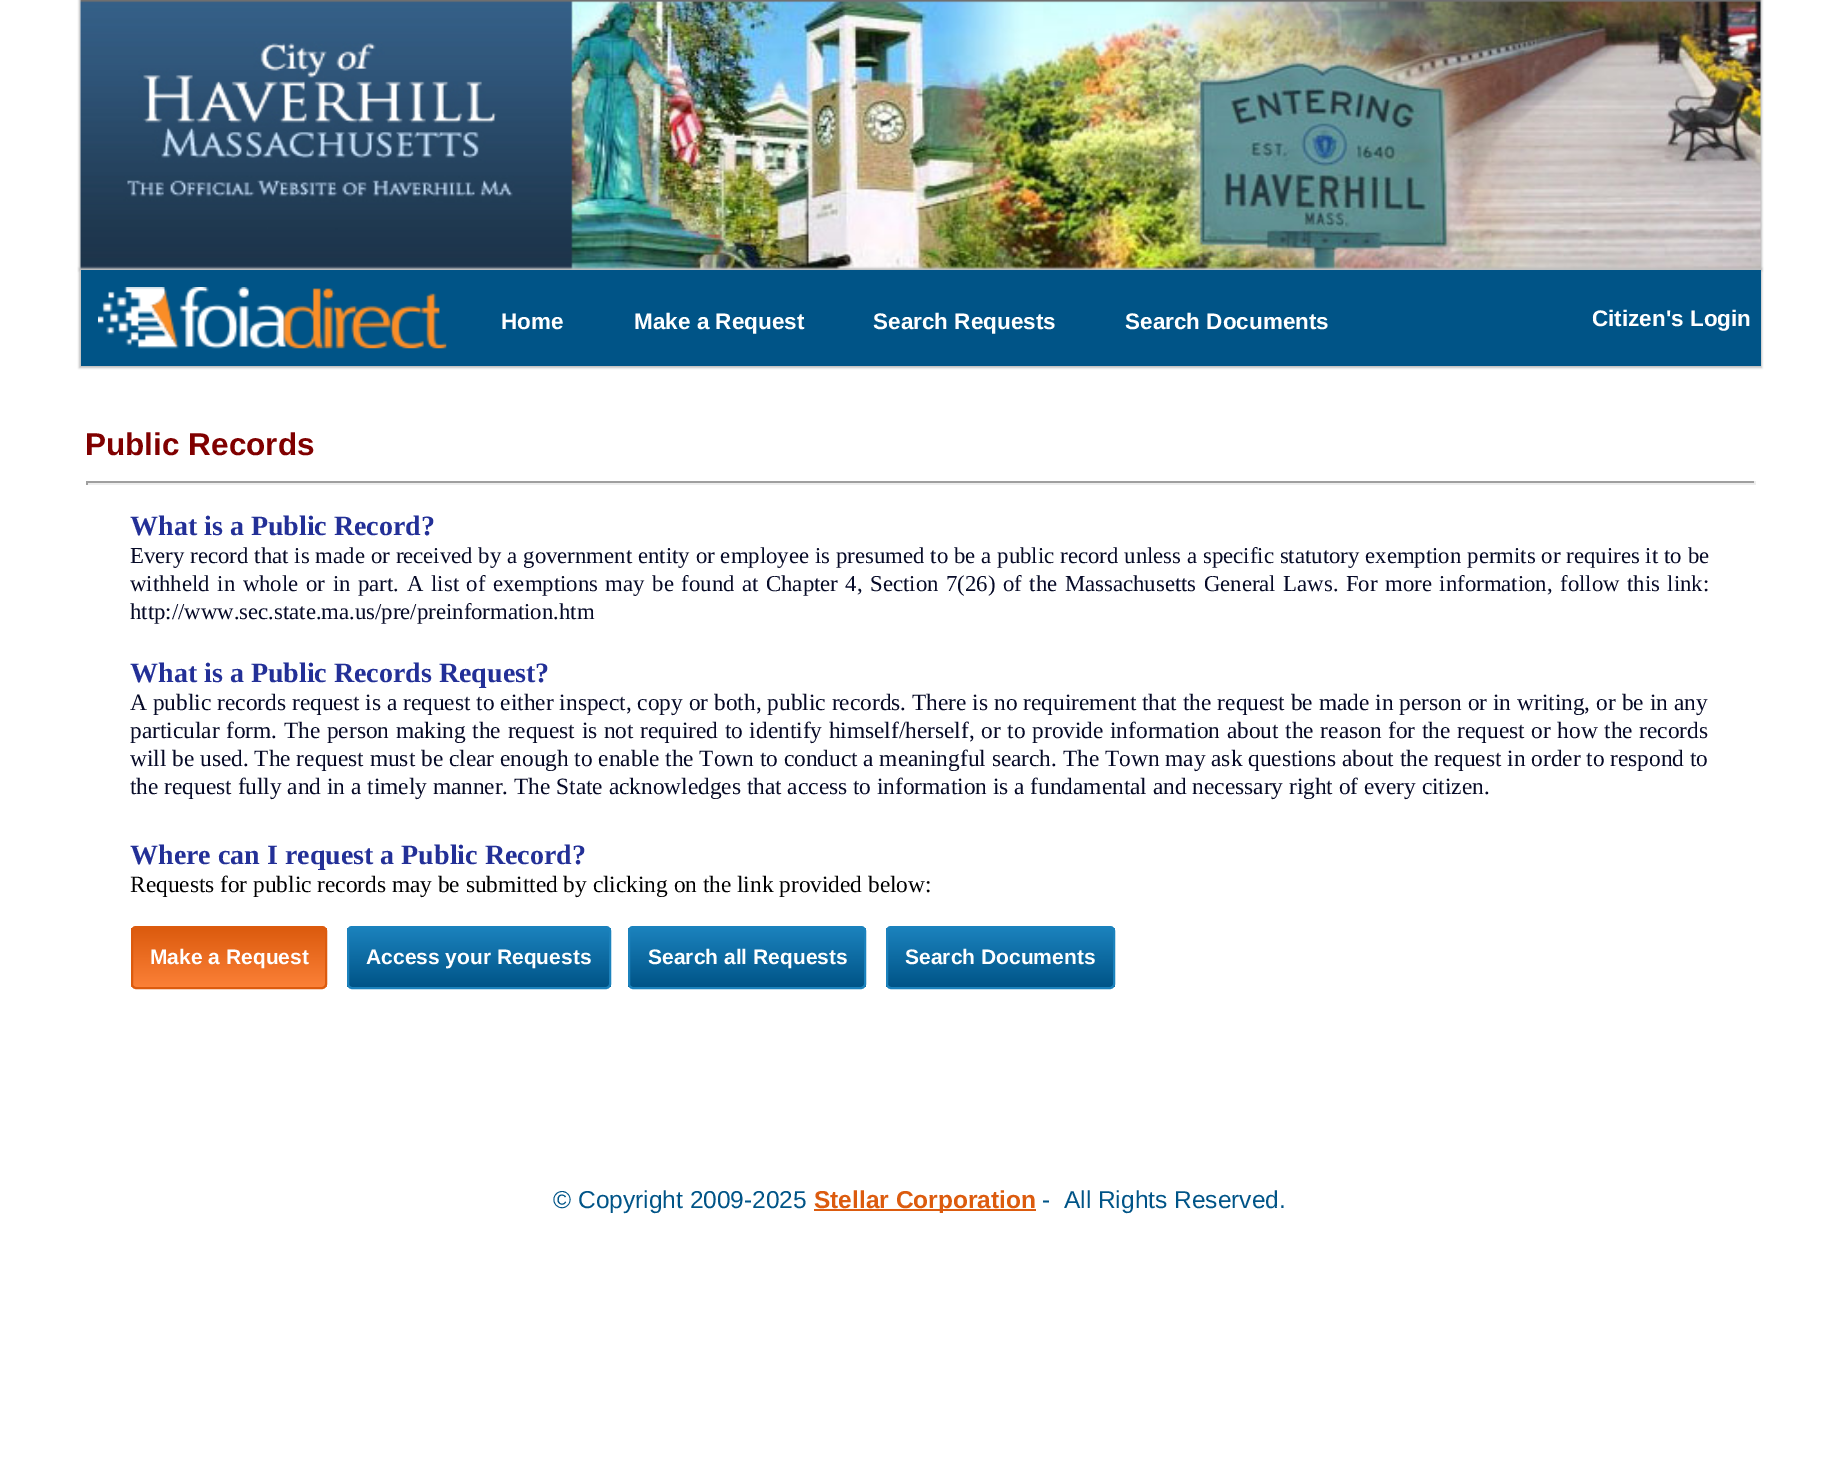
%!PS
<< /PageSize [1838 1463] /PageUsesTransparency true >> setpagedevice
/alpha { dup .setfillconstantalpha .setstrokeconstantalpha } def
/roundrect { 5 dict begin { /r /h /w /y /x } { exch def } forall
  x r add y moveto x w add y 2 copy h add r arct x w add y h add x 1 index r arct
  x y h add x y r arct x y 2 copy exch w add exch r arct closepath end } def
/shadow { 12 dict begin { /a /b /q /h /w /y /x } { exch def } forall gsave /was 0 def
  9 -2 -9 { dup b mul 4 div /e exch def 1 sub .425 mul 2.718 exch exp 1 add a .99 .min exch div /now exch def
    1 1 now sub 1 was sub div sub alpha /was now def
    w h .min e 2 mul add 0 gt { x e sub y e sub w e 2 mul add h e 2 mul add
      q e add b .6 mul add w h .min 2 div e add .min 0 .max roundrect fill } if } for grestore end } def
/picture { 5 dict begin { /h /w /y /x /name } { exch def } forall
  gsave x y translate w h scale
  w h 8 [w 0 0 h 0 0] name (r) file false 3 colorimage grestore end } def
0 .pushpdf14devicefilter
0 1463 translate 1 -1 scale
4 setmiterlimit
1 setgray
0 0 1838 1463 rectfill
0.753 setgray
79 -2 1683 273 0 1 1 shadow
81 0 1680 270 rectfill
(img1.rgb) 80 0 1681 270 picture
79 268 1683 100 0 1 1 shadow
0 0.329 0.529 setrgbcolor
81 270 1680 96 rectfill
(img2.rgb) 98 287 349 62 picture
/LiberationSans-Bold [22.5 0 0 -22.5 0 0] selectfont
1 setgray
501 329 moveto (Home) show
634 329 moveto (Make a Request) show
873 329 moveto (Search Requests) show
1125 329 moveto (Search Documents) show
1592 326 moveto (Citizen's Login) show
/LiberationSans-Bold [31.5 0 0 -31.5 0 0] selectfont
0.502 0 0 setrgbcolor
85 455 moveto (Public Records) show
0.624 setgray
86 481 1669 2 rectfill
0.933 setgray
1754 481 2 4 rectfill
86 483 1669 2 rectfill
0.624 setgray
86 481 2 4 rectfill
/LiberationSerif-Bold [28 0 0 -28 0 0] selectfont
0.137 0.188 0.592 setrgbcolor
130 535 moveto (What is a Public Record?) show
/LiberationSerif-Regular [22.75 0 0 -22.75 0 0] selectfont
0.024 0.039 0.153 setrgbcolor
130 563 moveto 0.25 0 32 (Every record that is made or received by a government entity or employee is presumed to be a public record unless a specific statutory exemption permits or requires it to be) widthshow
130 591 moveto 2 0 32 (withheld in whole or in part.) widthshow
407 591 moveto 1.9 0 32 (A list of exemptions may be found at Chapter 4, Section 7\(26\) of the Massachusetts General Laws. For more information, follow this link:) widthshow
130 619 moveto (http://www.sec.state.ma.us/pre/preinformation.htm) show
/LiberationSerif-Bold [28 0 0 -28 0 0] selectfont
0.137 0.188 0.592 setrgbcolor
130 682 moveto (What is a Public Records Request?) show
/LiberationSerif-Regular [23.33 0 0 -23.33 0 0] selectfont
0.024 0.039 0.153 setrgbcolor
130 710 moveto 0.15 0 32 (A public records request is a request to either inspect, copy or both, public records. There is no requirement that the request be made in person or in writing, or be in any) widthshow
130 738 moveto 0.85 0 32 (particular form. The person making the request is not required to identify himself/herself, or to provide information about the reason for the request or how the records) widthshow
130 766 moveto (will be used. The request must be clear enough to enable the Town to conduct a meaningful search. The Town may ask questions about the request in order to respond to) show
130 794 moveto (the request fully and in a timely manner. The State acknowledges that access to information is a fundamental and necessary right of every citizen.) show
/LiberationSerif-Bold [28 0 0 -28 0 0] selectfont
0.137 0.188 0.592 setrgbcolor
130 864 moveto (Where can I request a Public Record?) show
/LiberationSerif-Regular [23.33 0 0 -23.33 0 0] selectfont
0 setgray
130 892 moveto (Requests for public records may be submitted by clicking on the link provided below:) show
gsave
131 926 196 63 5 roundrect clip newpath
gsave newpath 131 928 moveto 327 928 lineto 327 987 lineto 131 987 lineto closepath clip newpath
<< /ShadingType 2 /ColorSpace /DeviceRGB /Coords [229 928 229 987] /Extend [true true] /Function << /FunctionType 2 /Domain [0 1] /C0 [0.863 0.357 0.055] /C1 [0.984 0.502 0.216] /N 1 >> >> shfill grestore
grestore
0.863 0.357 0.055 setrgbcolor
2 setlinewidth
132 927 194 61 4 roundrect stroke
/LiberationSans-Bold [21 0 0 -21 0 0] selectfont
1 setgray
150 964 moveto (Make a Request) show
gsave
347 926 264 63 5 roundrect clip newpath
gsave newpath 347 928 moveto 611 928 lineto 611 987 lineto 347 987 lineto closepath clip newpath
<< /ShadingType 2 /ColorSpace /DeviceRGB /Coords [479 928 479 987] /Extend [true true] /Function << /FunctionType 2 /Domain [0 1] /C0 [0.106 0.51 0.741] /C1 [0 0.329 0.529] /N 1 >> >> shfill grestore
grestore
0.106 0.51 0.741 setrgbcolor
348 927 262 61 4 roundrect stroke
1 setgray
366 964 moveto (Access your Requests) show
gsave
628 926 238 63 5 roundrect clip newpath
gsave newpath 628 928 moveto 866 928 lineto 866 987 lineto 628 987 lineto closepath clip newpath
<< /ShadingType 2 /ColorSpace /DeviceRGB /Coords [747 928 747 987] /Extend [true true] /Function << /FunctionType 2 /Domain [0 1] /C0 [0.106 0.51 0.741] /C1 [0 0.329 0.529] /N 1 >> >> shfill grestore
grestore
0.106 0.51 0.741 setrgbcolor
629 927 236 61 4 roundrect stroke
1 setgray
648 964 moveto (Search all Requests) show
gsave
886 926 229 63 5 roundrect clip newpath
gsave newpath 886 928 moveto 1115 928 lineto 1115 987 lineto 886 987 lineto closepath clip newpath
<< /ShadingType 2 /ColorSpace /DeviceRGB /Coords [1000 928 1000 987] /Extend [true true] /Function << /FunctionType 2 /Domain [0 1] /C0 [0.106 0.51 0.741] /C1 [0 0.329 0.529] /N 1 >> >> shfill grestore
grestore
0.106 0.51 0.741 setrgbcolor
887 927 227 61 4 roundrect stroke
1 setgray
905 964 moveto (Search Documents) show
/LiberationSans-Regular [24.5 0 0 -24.5 0 0] selectfont
0 0.329 0.529 setrgbcolor
553 1208 moveto (© Copyright 2009-2025) show
0.863 0.357 0.055 setrgbcolor
814 1209 222 2 rectfill
/LiberationSans-Bold [24.5 0 0 -24.5 0 0] selectfont
814 1208 moveto (Stellar Corporation) show
/LiberationSans-Regular [24.5 0 0 -24.5 0 0] selectfont
0 0.329 0.529 setrgbcolor
1042 1208 moveto (-  All Rights Reserved.) show
.poppdf14devicefilter showpage
